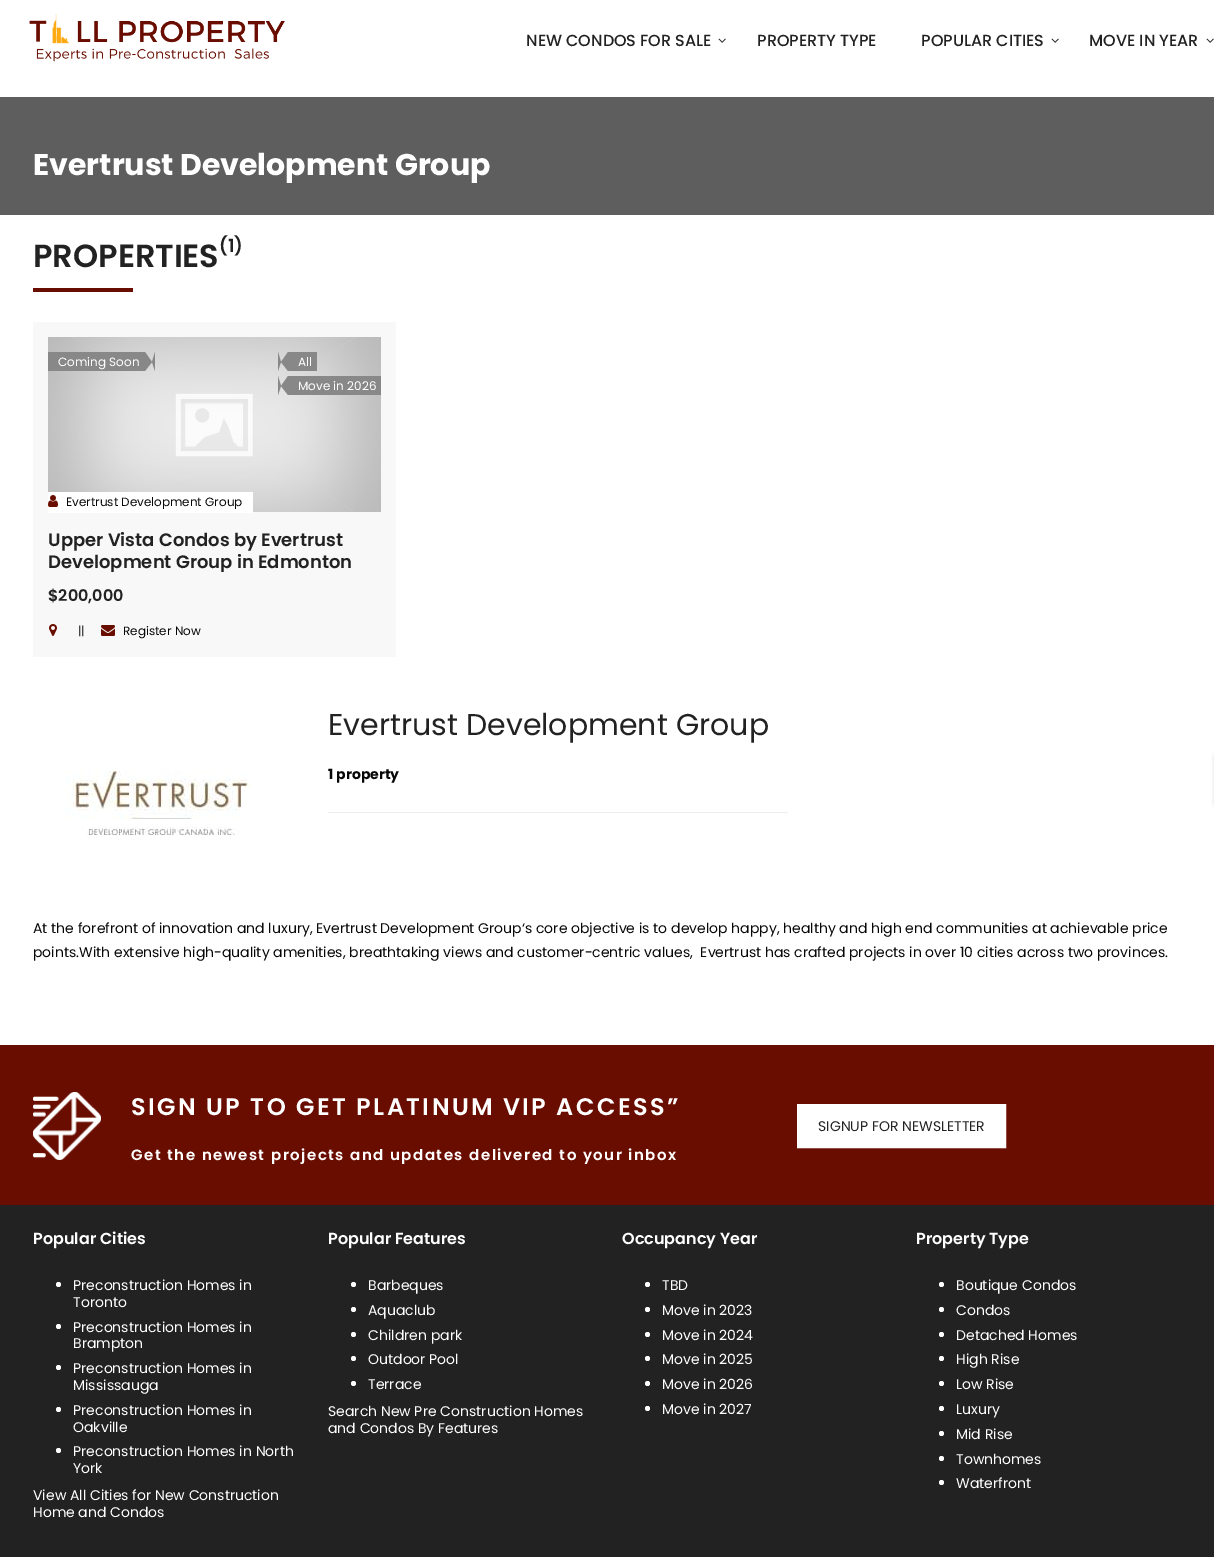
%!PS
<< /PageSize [1214 1557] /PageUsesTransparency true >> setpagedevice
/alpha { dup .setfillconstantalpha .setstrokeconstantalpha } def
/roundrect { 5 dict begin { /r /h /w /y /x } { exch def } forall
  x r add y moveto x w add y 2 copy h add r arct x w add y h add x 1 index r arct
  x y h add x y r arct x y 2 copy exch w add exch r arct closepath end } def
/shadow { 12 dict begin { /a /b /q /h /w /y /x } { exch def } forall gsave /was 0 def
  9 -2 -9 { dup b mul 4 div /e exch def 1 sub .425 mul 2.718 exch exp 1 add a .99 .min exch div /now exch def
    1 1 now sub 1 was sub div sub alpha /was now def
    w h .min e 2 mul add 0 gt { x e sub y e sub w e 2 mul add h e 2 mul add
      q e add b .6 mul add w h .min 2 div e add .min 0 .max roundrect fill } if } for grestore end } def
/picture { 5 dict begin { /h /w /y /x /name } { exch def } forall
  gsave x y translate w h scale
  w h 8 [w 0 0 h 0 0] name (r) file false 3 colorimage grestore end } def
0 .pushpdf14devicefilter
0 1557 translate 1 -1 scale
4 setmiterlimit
1 setgray
0 0 1214 1557 rectfill
(img1.rgb) 29 14 256 48 picture
/Poppins-Medium [16 0 0 -16 0 0] selectfont
0.133 setgray
526 46 moveto (NEW CONDOS FOR SALE) show
(img2.rgb) 718 38 8 5 picture
757 46 moveto (PROPERTY TYPE) show
921 46 moveto (POPULAR CITIES) show
(img2.rgb) 1051 38 8 5 picture
1089 46 moveto (MOVE IN YEAR) show
(img2.rgb) 1206 38 8 5 picture
0.369 setgray
0 97 1214 118 rectfill
/Poppins-Bold [30 0 0 -30 0 0] selectfont
1 setgray
33 175 moveto (Evertrust Development Group) show
/Poppins-SemiBold [32 0 0 -32 0 0] selectfont
0.133 setgray
33 267 moveto (PROPERTIES) show
/Poppins-SemiBold [18 0 0 -18 0 0] selectfont
219 252 moveto (\(1\)) show
0.412 0.051 0 setrgbcolor
33 288 100 4 rectfill
0.973 setgray
33 322 363 335 rectfill
(img3.rgb) 48 337 333 175 picture
0.533 setgray
48 352 97 19 rectfill
/Poppins-Regular [12 0 0 -12 0 0] selectfont
1 setgray
58 366 moveto (Coming Soon) show
0.533 setgray
newpath 155 352 moveto 155 371 lineto 152 362 lineto closepath 145 371 moveto 145 352 lineto 152 362 lineto closepath fill
288 352 29 19 rectfill
newpath 288 352 moveto 288 371 lineto 281 362 lineto closepath 278 371 moveto 278 352 lineto 281 362 lineto closepath fill
1 setgray
298 366 moveto (All) show
0.533 setgray
288 376 93 19 rectfill
newpath 288 376 moveto 288 395 lineto 281 386 lineto closepath 278 395 moveto 278 376 lineto 281 386 lineto closepath fill
1 setgray
298 390 moveto (Move in 2026) show
48 492 205 21 rectfill
(img4.rgb) 48 495 10 12 picture
0.027 setgray
66 506 moveto (Evertrust Development Group) show
/Poppins-SemiBold [18 0 0 -18 0 0] selectfont
0.133 setgray
48 546 moveto (Upper Vista Condos by Evertrust) show
gsave
48 529 333 43 rectclip
48 568 moveto (Development Group in Edmonton) show
grestore
/Poppins-SemiBold [16 0 0 -16 0 0] selectfont
48 601 moveto ($200,000) show
(img5.rgb) 49 624 8 12 picture
/Poppins-Regular [12 0 0 -12 0 0] selectfont
0.027 setgray
78 635 moveto (||) show
(img6.rgb) 101 625 14 11 picture
123 635 moveto (Register Now) show
/Poppins-Regular [30 0 0 -30 0 0] selectfont
0.133 setgray
328 735 moveto (Evertrust Development Group) show
/Poppins-Bold [14 0 0 -14 0 0] selectfont
0.027 setgray
328 779 moveto (1 property) show
0.933 setgray
328 812 460 1 rectfill
(img7.rgb) 65 770 186 65 picture
/Poppins-Regular [14 0 0 -14 0 0] selectfont
0.027 setgray
33 933 moveto (At the forefront of innovation and luxury, Evertrust Development Group‘s core objective is to develop happy, healthy and high end communities at achievable price) show
33 957 moveto (points.With extensive high-quality amenities, breathtaking views and customer-centric values,  Evertrust has crafted projects in over 10 cities across two provinces.) show
0.467 setgray
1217 756 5 48 0 2.5 1 shadow
0.133 setgray
0 1205 1214 352 rectfill
0.412 0.051 0 setrgbcolor
0 1045 1214 160 rectfill
(img8.rgb) 33 1092 68 68 picture
/Poppins-SemiBold [24 0 0 -24 0 0] selectfont
1 setgray
131 1115 moveto 2.4 0 (SIGN UP TO GET PLATINUM VIP ACCESS”) ashow
/Poppins-SemiBold [15 0 0 -15 0 0] selectfont
131 1160 moveto 1.5 0 (Get the newest projects and updates delivered to your inbox) ashow
newpath 798 1105 moveto 1005 1105 lineto 1005 1147 lineto 798 1147 lineto closepath gsave fill grestore
2 setlinewidth
stroke
/Poppins-Regular [14 0 0 -14 0 0] selectfont
0.133 setgray
818 1131 moveto (SIGNUP FOR NEWSLETTER) show
/Poppins-SemiBold [16 0 0 -16 0 0] selectfont
1 setgray
33 1244 moveto (Popular Cities) show
newpath 58.5 1284.5 2.5 0 360 arc closepath fill
/Poppins-Regular [14 0 0 -14 0 0] selectfont
73 1290 moveto (Preconstruction Homes in) show
73 1307 moveto (Toronto) show
newpath 58.5 1326.5 2.5 0 360 arc closepath fill
73 1332 moveto (Preconstruction Homes in) show
73 1348 moveto (Brampton) show
newpath 58.5 1367.5 2.5 0 360 arc closepath fill
73 1373 moveto (Preconstruction Homes in) show
73 1390 moveto (Mississauga) show
newpath 58.5 1409.5 2.5 0 360 arc closepath fill
73 1415 moveto (Preconstruction Homes in) show
73 1432 moveto (Oakville) show
newpath 58.5 1450.5 2.5 0 360 arc closepath fill
73 1456 moveto (Preconstruction Homes in North) show
73 1473 moveto (York) show
33 1500 moveto (View All Cities for New Construction) show
33 1517 moveto (Home and Condos) show
/Poppins-SemiBold [16 0 0 -16 0 0] selectfont
328 1244 moveto (Popular Features) show
newpath 353.5 1284.5 2.5 0 360 arc closepath fill
/Poppins-Regular [14 0 0 -14 0 0] selectfont
368 1290 moveto (Barbeques) show
newpath 353.5 1309.5 2.5 0 360 arc closepath fill
368 1315 moveto (Aquaclub) show
newpath 353.5 1334.5 2.5 0 360 arc closepath fill
368 1340 moveto (Children park) show
newpath 353.5 1358.5 2.5 0 360 arc closepath fill
368 1364 moveto (Outdoor Pool) show
newpath 353.5 1383.5 2.5 0 360 arc closepath fill
368 1389 moveto (Terrace) show
328 1416 moveto (Search New Pre Construction Homes) show
328 1433 moveto (and Condos By Features) show
/Poppins-SemiBold [16 0 0 -16 0 0] selectfont
622 1244 moveto (Occupancy Year) show
newpath 647.5 1284.5 2.5 0 360 arc closepath fill
/Poppins-Regular [14 0 0 -14 0 0] selectfont
662 1290 moveto (TBD) show
newpath 647.5 1309.5 2.5 0 360 arc closepath fill
662 1315 moveto (Move in 2023) show
newpath 647.5 1334.5 2.5 0 360 arc closepath fill
662 1340 moveto (Move in 2024) show
newpath 647.5 1358.5 2.5 0 360 arc closepath fill
662 1364 moveto (Move in 2025) show
newpath 647.5 1383.5 2.5 0 360 arc closepath fill
662 1389 moveto (Move in 2026) show
newpath 647.5 1408.5 2.5 0 360 arc closepath fill
662 1414 moveto (Move in 2027) show
/Poppins-SemiBold [16 0 0 -16 0 0] selectfont
916 1244 moveto (Property Type) show
newpath 941.5 1284.5 2.5 0 360 arc closepath fill
/Poppins-Regular [14 0 0 -14 0 0] selectfont
956 1290 moveto (Boutique Condos) show
newpath 941.5 1309.5 2.5 0 360 arc closepath fill
956 1315 moveto (Condos) show
newpath 941.5 1334.5 2.5 0 360 arc closepath fill
956 1340 moveto (Detached Homes) show
newpath 941.5 1358.5 2.5 0 360 arc closepath fill
956 1364 moveto (High Rise) show
newpath 941.5 1383.5 2.5 0 360 arc closepath fill
956 1389 moveto (Low Rise) show
newpath 941.5 1408.5 2.5 0 360 arc closepath fill
956 1414 moveto (Luxury) show
newpath 941.5 1433.5 2.5 0 360 arc closepath fill
956 1439 moveto (Mid Rise) show
newpath 941.5 1458.5 2.5 0 360 arc closepath fill
956 1464 moveto (Townhomes) show
newpath 941.5 1482.5 2.5 0 360 arc closepath fill
956 1488 moveto (Waterfront) show
.poppdf14devicefilter showpage
